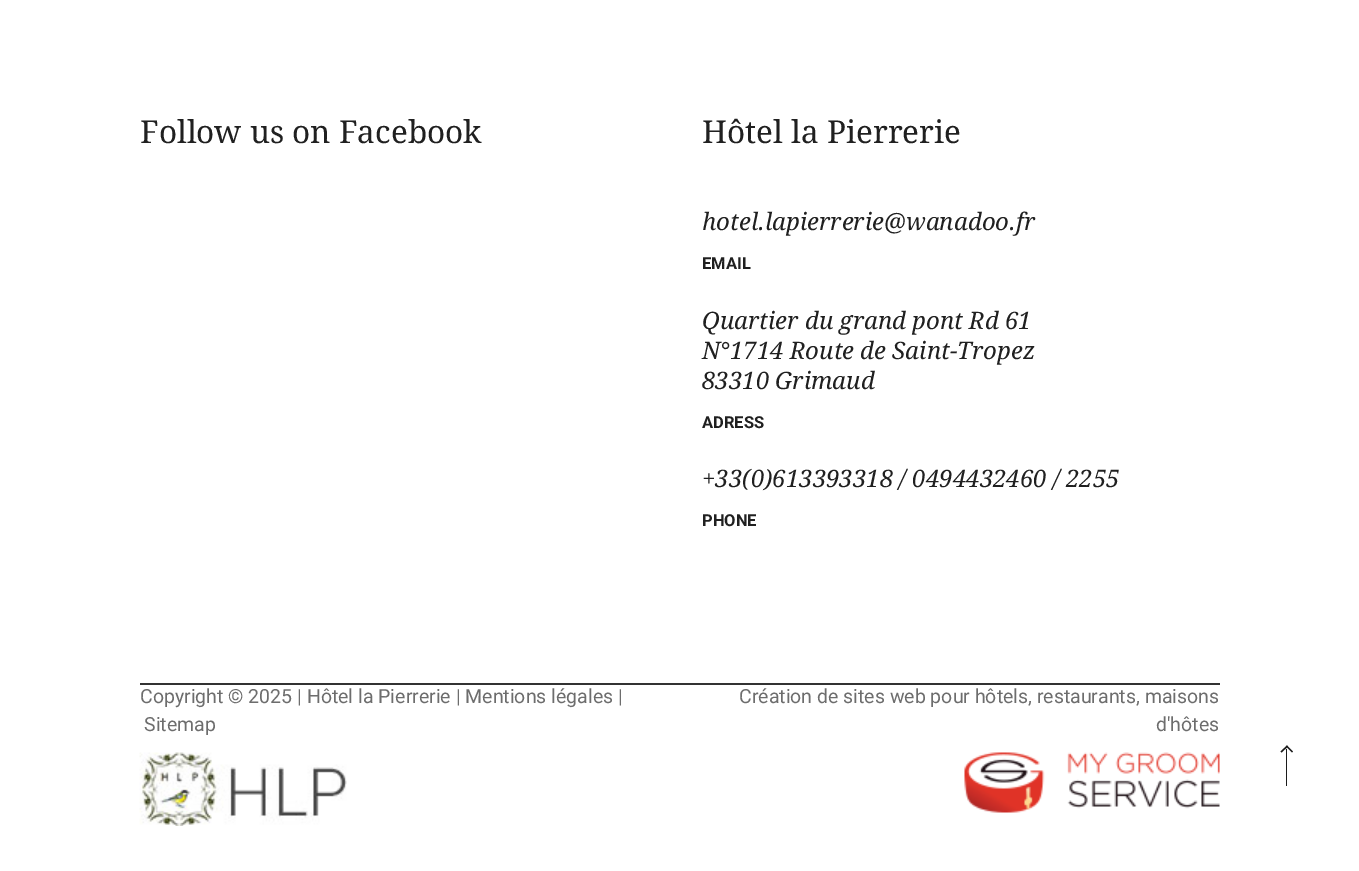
%!PS
<< /PageSize [1359 871] >> setpagedevice
/picture { 5 dict begin { /h /w /y /x /name } { exch def } forall
  gsave x y translate w h scale
  w h 8 [w 0 0 h 0 0] name (r) file false 3 colorimage grestore end } def
0 871 translate 1 -1 scale
4 setmiterlimit
1 setgray
0 0 1359 871 rectfill
0.2 setgray
140 683 1080 2 rectfill
/DroidSerif-Regular [31.5 0 0 -31.5 0 0] selectfont
0.125 setgray
140 143 moveto (Follow us on Facebook) show
702 143 moveto (Hôtel la Pierrerie) show
/DroidSerif-Italic [24 0 0 -24 0 0] selectfont
702 230 moveto (hotel.lapierrerie@wanadoo.fr) show
/Roboto-Bold [16.5 0 0 -16.5 0 0] selectfont
702 269 moveto (EMAIL) show
/DroidSerif-Italic [24 0 0 -24 0 0] selectfont
702 329 moveto (Quartier du grand pont Rd 61) show
702 359 moveto (N°1714 Route de Saint-Tropez) show
702 389 moveto (83310 Grimaud) show
/Roboto-Bold [16.5 0 0 -16.5 0 0] selectfont
702 428 moveto (ADRESS) show
/DroidSerif-Italic [24 0 0 -24 0 0] selectfont
702 487 moveto (+33\(0\)613393318 / 0494432460 / 2255) show
/Roboto-Bold [16.5 0 0 -16.5 0 0] selectfont
702 526 moveto (PHONE) show
/Roboto-Regular [19.5 0 0 -19.5 0 0] selectfont
0.427 setgray
140 703 moveto (Copyright © 2025 | Hôtel la Pierrerie | Mentions légales |) show
144 731 moveto (Sitemap) show
(img1.rgb) 139 752 208 74 picture
739 703 moveto (Création de sites web pour hôtels, restaurants, maisons) show
1156 731 moveto (d'hôtes) show
(img2.rgb) 964 752 256 61 picture
0.11 setgray
1286 749 1 37 rectfill
newpath 1280.5 751.5 moveto 1287 745.5 lineto 1288 746.5 lineto 1281.5 752.5 lineto closepath fill
newpath 1286 746.5 moveto 1287 745.5 lineto 1293 751.5 lineto 1292 752.5 lineto closepath fill
showpage
